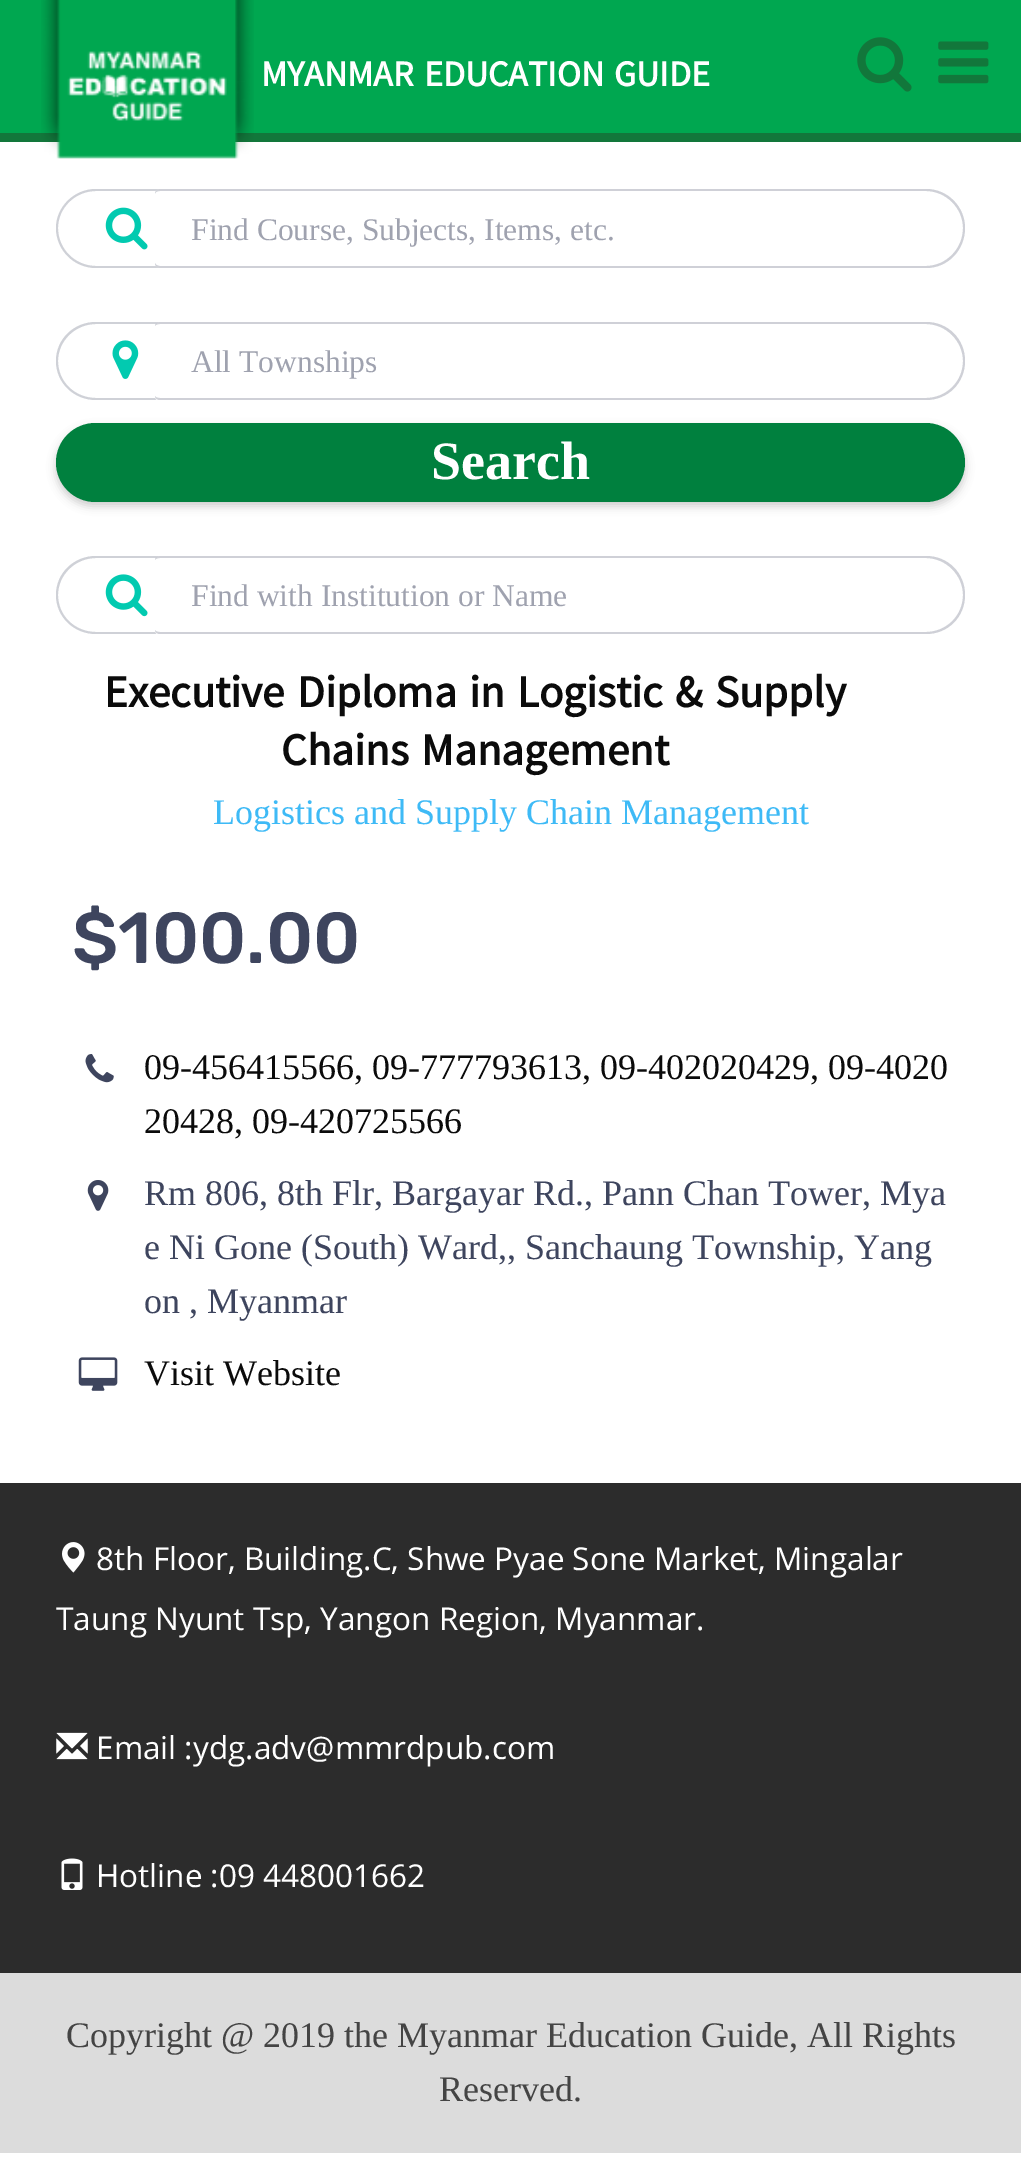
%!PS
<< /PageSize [1021 2164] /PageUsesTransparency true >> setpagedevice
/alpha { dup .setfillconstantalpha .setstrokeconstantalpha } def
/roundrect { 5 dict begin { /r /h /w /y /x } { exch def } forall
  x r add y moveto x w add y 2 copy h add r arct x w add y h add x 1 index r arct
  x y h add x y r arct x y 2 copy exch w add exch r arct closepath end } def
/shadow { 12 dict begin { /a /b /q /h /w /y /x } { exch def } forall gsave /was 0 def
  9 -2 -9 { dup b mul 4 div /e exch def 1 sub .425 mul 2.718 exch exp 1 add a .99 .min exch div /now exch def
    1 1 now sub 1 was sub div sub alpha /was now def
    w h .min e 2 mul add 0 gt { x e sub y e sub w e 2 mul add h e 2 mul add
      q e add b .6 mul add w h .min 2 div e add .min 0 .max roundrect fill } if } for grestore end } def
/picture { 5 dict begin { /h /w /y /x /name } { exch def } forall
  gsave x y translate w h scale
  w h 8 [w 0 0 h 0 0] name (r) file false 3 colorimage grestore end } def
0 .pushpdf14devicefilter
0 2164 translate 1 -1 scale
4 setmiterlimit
1 setgray
0 0 1021 2164 rectfill
0 0.655 0.314 setrgbcolor
0 0 1021 133 rectfill
0.071 0.467 0.231 setrgbcolor
0 133 1021 9 rectfill
(img1.rgb) 41 0 213 159 picture
/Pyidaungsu-Bold [36 0 0 -36 0 0] selectfont
1 setgray
261 86 moveto (MYANMAR EDUCATION GUIDE) show
(img2.rgb) 857 37 55 55 picture
(img3.rgb) 938 41 51 43 picture
0.812 0.82 0.843 setrgbcolor
newpath 96 189 moveto 158 189 lineto 158 268 lineto 96 268 lineto 74 268 56 250 56 228 curveto 56 207 74 189 96 189 curveto closepath 96 191 moveto 158 191 lineto 158 266 lineto 96 266 lineto 75 266 58 249 58 228 curveto 58 208 75 191 96 191 curveto closepath eofill
(img4.rgb) 105 207 43 43 picture
1 setgray
newpath 160 189 moveto 925.5 189 lineto 947.5 189 965 206.5 965 228.5 curveto 965 250.5 947.5 268 925.5 268 curveto 160 268 lineto 157 268 155 266 155 263 curveto 155 194 lineto 155 191 157 189 160 189 curveto closepath fill
0.25 alpha
0.243 0.271 0.369 setrgbcolor
newpath 160 189 moveto 926 189 lineto 948 189 965 207 965 228 curveto 965 250 948 268 926 268 curveto 160 268 lineto 157 268 155 266 155 263 curveto 155 194 lineto 155 191 157 189 160 189 curveto closepath 160 191 moveto 926 191 lineto 946 191 963 208 963 228 curveto 963 249 946 266 926 266 curveto 160 266 lineto 157 266 155 264 155 263 curveto 155 194 lineto 155 192 157 191 160 191 curveto closepath eofill
/LiberationSerif-Regular [31.5 0 0 -31.5 0 0] selectfont
1 alpha
0.624 0.635 0.686 setrgbcolor
191 240 moveto (Find Course, Subjects, Items, etc.) show
0.812 0.82 0.843 setrgbcolor
newpath 96 322 moveto 158 322 lineto 158 400 lineto 96 400 lineto 74 400 56 383 56 361 curveto 56 339 74 322 96 322 curveto closepath 96 324 moveto 158 324 lineto 158 398 lineto 96 398 lineto 75 398 58 382 58 361 curveto 58 341 75 324 96 324 curveto closepath eofill
(img5.rgb) 112 340 27 39 picture
1 setgray
newpath 160 322 moveto 925.5 322 lineto 947.5 322 965 339.5 965 361.5 curveto 965 383.5 947.5 401 925.5 401 curveto 160 401 lineto 157 401 155 399 155 396 curveto 155 327 lineto 155 324 157 322 160 322 curveto closepath fill
0.25 alpha
0.243 0.271 0.369 setrgbcolor
newpath 160 322 moveto 926 322 lineto 948 322 965 339 965 361 curveto 965 383 948 400 926 400 curveto 160 400 lineto 157 400 155 398 155 396 curveto 155 326 lineto 155 324 157 322 160 322 curveto closepath 160 324 moveto 926 324 lineto 946 324 963 341 963 361 curveto 963 382 946 398 926 398 curveto 160 398 lineto 157 398 155 397 155 396 curveto 155 326 lineto 155 325 157 324 160 324 curveto closepath eofill
1 alpha
0.624 0.635 0.686 setrgbcolor
191 372 moveto (All Townships) show
0 setgray
56 428 909 78 39 4.5 0.2 shadow
0 0.502 0.243 setrgbcolor
56 423 909 79 39.5 roundrect fill
/LiberationSerif-Bold [54 0 0 -54 0 0] selectfont
1 setgray
431 479 moveto (Search) show
0.812 0.82 0.843 setrgbcolor
newpath 96 556 moveto 158 556 lineto 158 634 lineto 96 634 lineto 74 634 56 617 56 595 curveto 56 573 74 556 96 556 curveto closepath 96 558 moveto 158 558 lineto 158 632 lineto 96 632 lineto 75 632 58 616 58 595 curveto 58 575 75 558 96 558 curveto closepath eofill
(img6.rgb) 105 574 43 43 picture
1 setgray
newpath 160 556 moveto 925.5 556 lineto 947.5 556 965 573.5 965 595.5 curveto 965 617.5 947.5 635 925.5 635 curveto 160 635 lineto 157 635 155 633 155 630 curveto 155 561 lineto 155 558 157 556 160 556 curveto closepath fill
0.25 alpha
0.243 0.271 0.369 setrgbcolor
newpath 160 556 moveto 926 556 lineto 948 556 965 573 965 595 curveto 965 617 948 634 926 634 curveto 160 634 lineto 157 634 155 632 155 630 curveto 155 560 lineto 155 558 157 556 160 556 curveto closepath 160 558 moveto 926 558 lineto 946 558 963 575 963 595 curveto 963 616 946 632 926 632 curveto 160 632 lineto 157 632 155 631 155 630 curveto 155 560 lineto 155 559 157 558 160 558 curveto closepath eofill
/LiberationSerif-Regular [31.5 0 0 -31.5 0 0] selectfont
1 alpha
0.624 0.635 0.686 setrgbcolor
191 606 moveto (Find with Institution or Name) show
/Pyidaungsu-Bold [45 0 0 -45 0 0] selectfont
0.043 setgray
104 707 moveto (Executive Diploma in Logistic & Supply) show
281 765 moveto (Chains Management) show
/LiberationSerif-Regular [36 0 0 -36 0 0] selectfont
0.243 0.729 0.965 setrgbcolor
213 824 moveto (Logistics and Supply Chain Management) show
/Rubik-Medium [72 0 0 -72 0 0] selectfont
0.243 0.271 0.369 setrgbcolor
72 963 moveto ($100.00) show
(img7.rgb) 85 1054 29 29 picture
/LiberationSerif-Regular [36 0 0 -36 0 0] selectfont
0.043 setgray
144 1079 moveto (09-456415566, 09-777793613, 09-402020429, 09-4020) show
144 1133 moveto (20428, 09-420725566) show
(img8.rgb) 87 1180 22 31 picture
0.243 0.271 0.369 setrgbcolor
144 1205 moveto (Rm 806, 8th Flr, Bargayar Rd., Pann Chan Tower, Mya) show
144 1259 moveto (e Ni Gone \(South\) Ward,, Sanchaung Township, Yang) show
144 1313 moveto (on , Myanmar) show
(img9.rgb) 78 1357 40 34 picture
0.043 setgray
144 1385 moveto (Visit Website) show
0.173 setgray
0 1483 1021 490 rectfill
(img10.rgb) 62 1542 23 31 picture
/OpenSans-Regular [31.5 0 0 -31.5 0 0] selectfont
1 setgray
96 1570 moveto (8th Floor, Building.C, Shwe Pyae Sone Market, Mingalar) show
56 1630 moveto (Taung Nyunt Tsp, Yangon Region, Myanmar.) show
(img11.rgb) 56 1732 32 28 picture
96 1759 moveto (Email :ydg.adv@mmrdpub.com) show
(img12.rgb) 61 1858 22 32 picture
96 1887 moveto (Hotline :09 448001662) show
0.863 setgray
0 1973 1021 180 rectfill
/LiberationSerif-Regular [36 0 0 -36 0 0] selectfont
0.267 setgray
66 2047 moveto (Copyright @ 2019 the Myanmar Education Guide, All Rights) show
439 2101 moveto (Reserved.) show
.poppdf14devicefilter showpage
